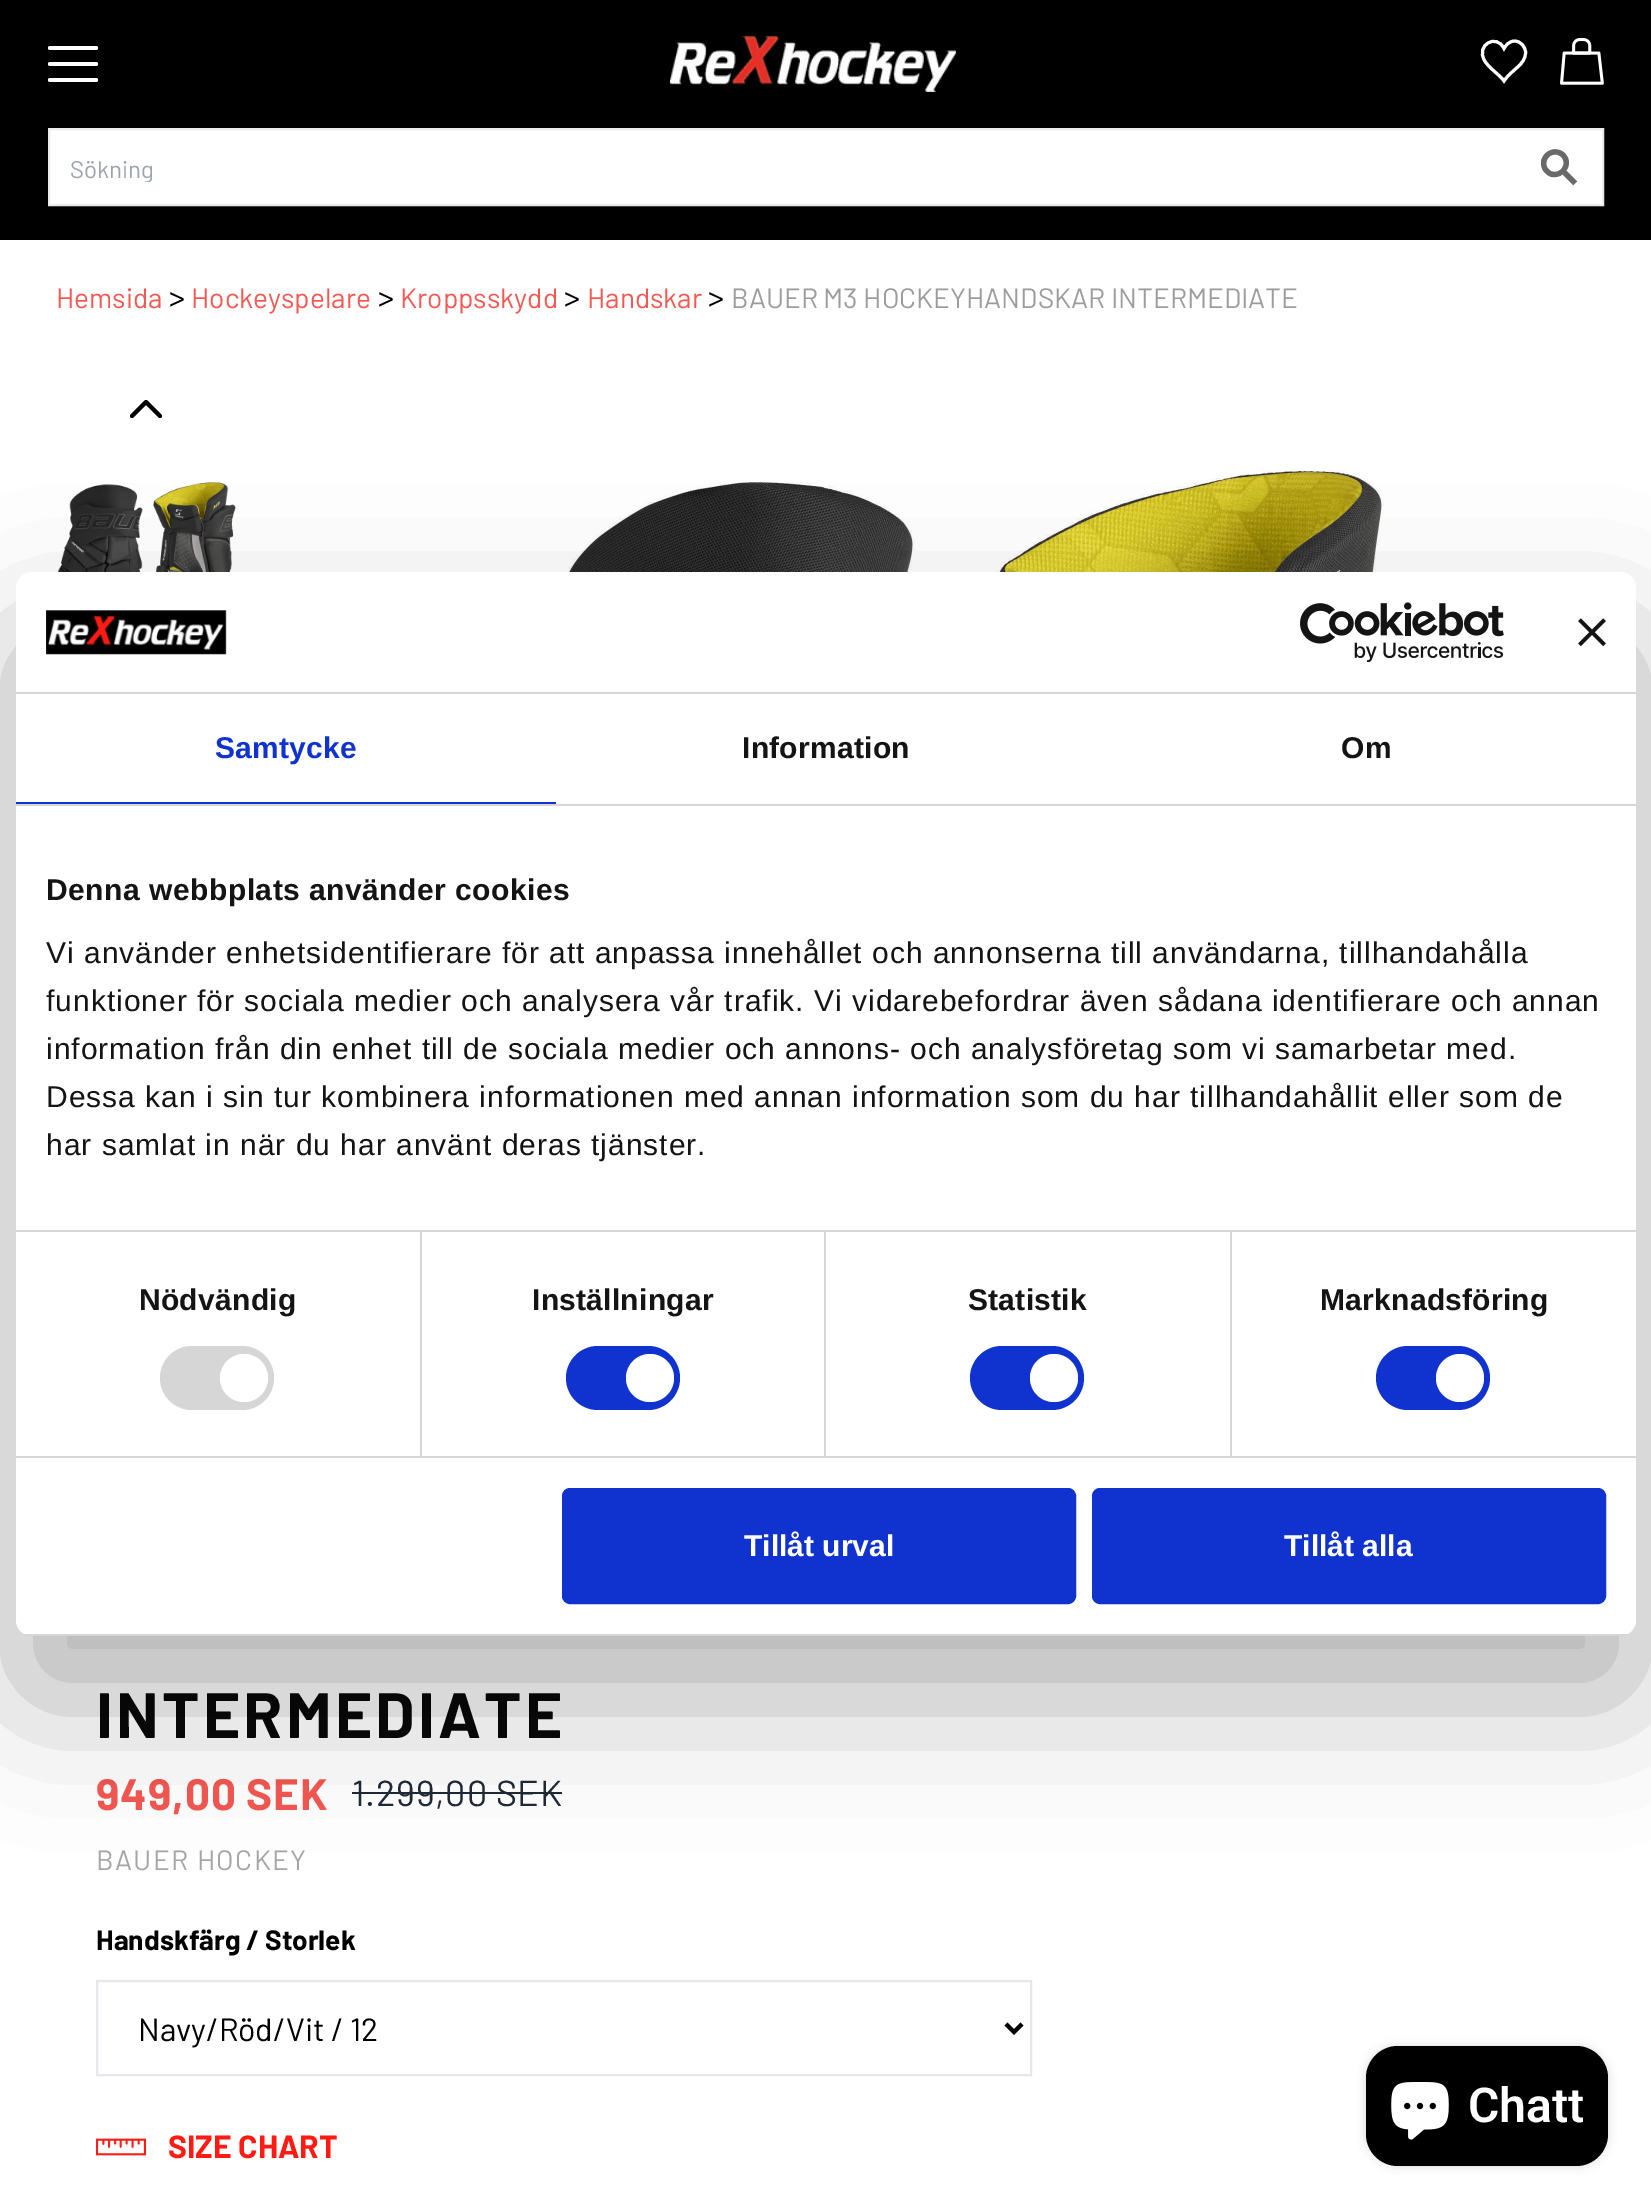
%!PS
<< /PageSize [1651 2208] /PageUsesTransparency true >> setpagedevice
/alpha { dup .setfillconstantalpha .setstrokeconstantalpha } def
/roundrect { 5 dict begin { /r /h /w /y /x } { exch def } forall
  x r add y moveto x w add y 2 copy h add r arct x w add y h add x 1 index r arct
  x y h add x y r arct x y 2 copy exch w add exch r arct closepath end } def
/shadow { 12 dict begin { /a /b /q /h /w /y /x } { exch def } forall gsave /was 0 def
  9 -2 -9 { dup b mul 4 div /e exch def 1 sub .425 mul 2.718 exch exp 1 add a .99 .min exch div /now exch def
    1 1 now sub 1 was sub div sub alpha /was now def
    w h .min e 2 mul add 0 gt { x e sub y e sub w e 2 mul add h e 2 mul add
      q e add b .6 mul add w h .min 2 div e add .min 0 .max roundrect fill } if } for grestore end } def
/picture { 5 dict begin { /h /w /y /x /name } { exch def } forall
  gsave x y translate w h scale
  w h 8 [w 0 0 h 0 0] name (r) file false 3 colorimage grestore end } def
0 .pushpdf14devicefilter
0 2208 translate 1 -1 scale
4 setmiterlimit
1 setgray
0 0 1651 2208 rectfill
0 setgray
0 0 1651 240 rectfill
1 setgray
48 46 50 4 2 roundrect fill
48 62 50 4 2 roundrect fill
48 78 50 4 2 roundrect fill
(img1.rgb) 670 36 286 56 picture
3 setlinewidth
newpath 1514.5 41 moveto 1509.5 41 1506 45 1504 48.5 curveto 1496.5 33 1475.5 45 1484.5 60.5 curveto 1489 68.5 1498.5 73.5 1504 81 curveto 1512.5 68.5 1525.5 65 1525.5 52.5 curveto 1525.5 46.5 1520.5 41 1514.5 41 curveto closepath stroke
(img2.rgb) 1560 38 44 47 picture
newpath 49 129 moveto 1603 129 lineto 1603 205 lineto 49 205 lineto closepath gsave fill grestore
0.925 setgray
2 setlinewidth
stroke
gsave
70 154 1424 28 rectclip
/Barlow-Regular [24 0 0 -24 0 0] selectfont
0.612 0.639 0.686 setrgbcolor
70 178 moveto (Sökning) show
grestore
/DejaVuSans-Bold [48 0 0 -48 0 0] selectfont
0.412 setgray
gsave 1558 192 translate -45 rotate 0 0 moveto (⚲) show grestore
/Barlow-Regular [28 0 0 -28 0 0] selectfont
0.961 0.345 0.322 setrgbcolor
56 308 moveto (Hemsida) show
/Barlow-Regular [32 0 0 -32 0 0] selectfont
0 setgray
169 308 moveto (>) show
/Barlow-Regular [28 0 0 -28 0 0] selectfont
0.961 0.345 0.322 setrgbcolor
191 308 moveto (Hockeyspelare) show
/Barlow-Regular [32 0 0 -32 0 0] selectfont
0 setgray
378 308 moveto (>) show
/Barlow-Regular [28 0 0 -28 0 0] selectfont
0.961 0.345 0.322 setrgbcolor
400 308 moveto (Kroppsskydd) show
/Barlow-Regular [32 0 0 -32 0 0] selectfont
0 setgray
564 308 moveto (>) show
/Barlow-Regular [28 0 0 -28 0 0] selectfont
0.961 0.345 0.322 setrgbcolor
587 308 moveto (Handskar) show
/Barlow-Regular [32 0 0 -32 0 0] selectfont
0 setgray
708 308 moveto (>) show
/Barlow-Regular [28 0 0 -28 0 0] selectfont
0.612 setgray
731 308 moveto (BAUER M3 HOCKEYHANDSKAR INTERMEDIATE) show
0 setgray
4 setlinewidth
1 setlinecap
1 setlinejoin
newpath 132 416 moveto 146 402 lineto 160 416 lineto stroke
(img3.rgb) 56 482 180 90 picture
(img4.rgb) 496 466 928 106 picture
/Barlow-Bold [64 0 0 -64 0 0] selectfont
0.031 setgray
96 1738 moveto 3.25 0 (INTERMEDIATE) ashow
/Barlow-Bold [44 0 0 -44 0 0] selectfont
0.961 0.345 0.322 setrgbcolor
96 1810 moveto 0.9 0 (949,00 SEK) ashow
/Barlow-Regular [36 0 0 -36 0 0] selectfont
0.122 0.161 0.216 setrgbcolor
352 1806 moveto 0.75 0 (1.299,00 SEK) ashow
352 1792 210 2 rectfill
/Barlow-Regular [28 0 0 -28 0 0] selectfont
0.647 setgray
96 1870 moveto 1.4 0 (BAUER HOCKEY) ashow
/Barlow-Bold [28 0 0 -28 0 0] selectfont
0 setgray
96 1950 moveto (Handskfärg / Storlek) show
0.898 0.906 0.922 setrgbcolor
2 setlinewidth
0 setlinecap
0 setlinejoin
97 1981 934 94 rectstroke
0 setgray
4 setlinewidth
newpath 1006 2024 moveto 1014 2032 lineto 1022 2024 lineto stroke
/Barlow-Regular [32 0 0 -32 0 0] selectfont
138 2041 moveto (Navy/Röd/Vit / 12) show
(img5.rgb) 96 2138 50 18 picture
/Barlow-Bold [32 0 0 -32 0 0] selectfont
0.996 0.106 0.078 setrgbcolor
168 2158 moveto (SIZE CHART) show
0 setgray
16 636 1620 1064 16 68 0.3 shadow
1 setgray
16 572 1620 1064 16 roundrect fill
0.839 setgray
16 692 1620 2 rectfill
(img6.rgb) 46 610 181 45 picture
(img7.rgb) 1300 602 204 60 picture
(img8.rgb) 1578 618 28 28 picture
16 804 1620 2 rectfill
0.063 0.196 0.812 setrgbcolor
16 802 540 2 rectfill
/LiberationSans-Bold [30 0 0 -30 0 0] selectfont
215 758 moveto 0.25 0 (Samtycke) ashow
0.078 setgray
742 758 moveto 0.25 0 (Information) ashow
1341 758 moveto 0.25 0 (Om) ashow
0.839 setgray
16 1230 1620 2 rectfill
0.078 setgray
46 900 moveto 0.5 0 (Denna webbplats använder cookies) ashow
/LiberationSans-Regular [30 0 0 -30 0 0] selectfont
46 963 moveto 1 0 (Vi använder enhetsidentifierare för att anpassa innehållet och annonserna till användarna, tillhandahålla) ashow
46 1011 moveto 1 0 (funktioner för sociala medier och analysera vår trafik. Vi vidarebefordrar även sådana identifierare och annan) ashow
46 1059 moveto 1 0 (information från din enhet till de sociala medier och annons- och analysföretag som vi samarbetar med.) ashow
46 1107 moveto 1 0 (Dessa kan i sin tur kombinera informationen med annan information som du har tillhandahållit eller som de) ashow
46 1155 moveto 1 0 (har samlat in när du har använt deras tjänster.) ashow
0.839 setgray
16 1456 1620 2 rectfill
420 1232 2 224 rectfill
/LiberationSans-Bold [30 0 0 -30 0 0] selectfont
0.078 setgray
139 1310 moveto 0.25 0 (Nödvändig) ashow
0.839 setgray
160 1346 114 64 32 roundrect fill
1 setgray
newpath 244 1378 24 0 360 arc closepath fill
0.839 setgray
824 1232 2 224 rectfill
0.078 setgray
532 1310 moveto 0.25 0 (Inställningar) ashow
0.063 0.196 0.812 setrgbcolor
566 1346 114 64 32 roundrect fill
1 setgray
newpath 650 1378 24 0 360 arc closepath fill
0.839 setgray
1230 1232 2 224 rectfill
0.078 setgray
968 1310 moveto 0.25 0 (Statistik) ashow
0.063 0.196 0.812 setrgbcolor
970 1346 114 64 32 roundrect fill
1 setgray
newpath 1054 1378 24 0 360 arc closepath fill
0.078 setgray
1320 1310 moveto 0.25 0 (Marknadsföring) ashow
0.063 0.196 0.812 setrgbcolor
1376 1346 114 64 32 roundrect fill
1 setgray
newpath 1460 1378 24 0 360 arc closepath fill
gsave
16 572 1620 1064 16 roundrect clip newpath
0.839 setgray
16 1634 1620 2 rectfill
grestore
0.063 0.196 0.812 setrgbcolor
564 1490 510 112 6 roundrect gsave fill grestore
stroke
1 setgray
744 1556 moveto (Tillåt urval) show
0.063 0.196 0.812 setrgbcolor
1094 1490 510 112 6 roundrect gsave fill grestore
stroke
1 setgray
1284 1556 moveto (Tillåt alla) show
0 setgray
1366 2046 242 120 32 5 0.15 shadow
1366 2046 242 120 32 roundrect fill
(img9.rgb) 1391 2082 58 58 picture
/Roboto-SemiBold [48 0 0 -48 0 0] selectfont
1 setgray
1468 2122 moveto (Chatt) show
.poppdf14devicefilter showpage
